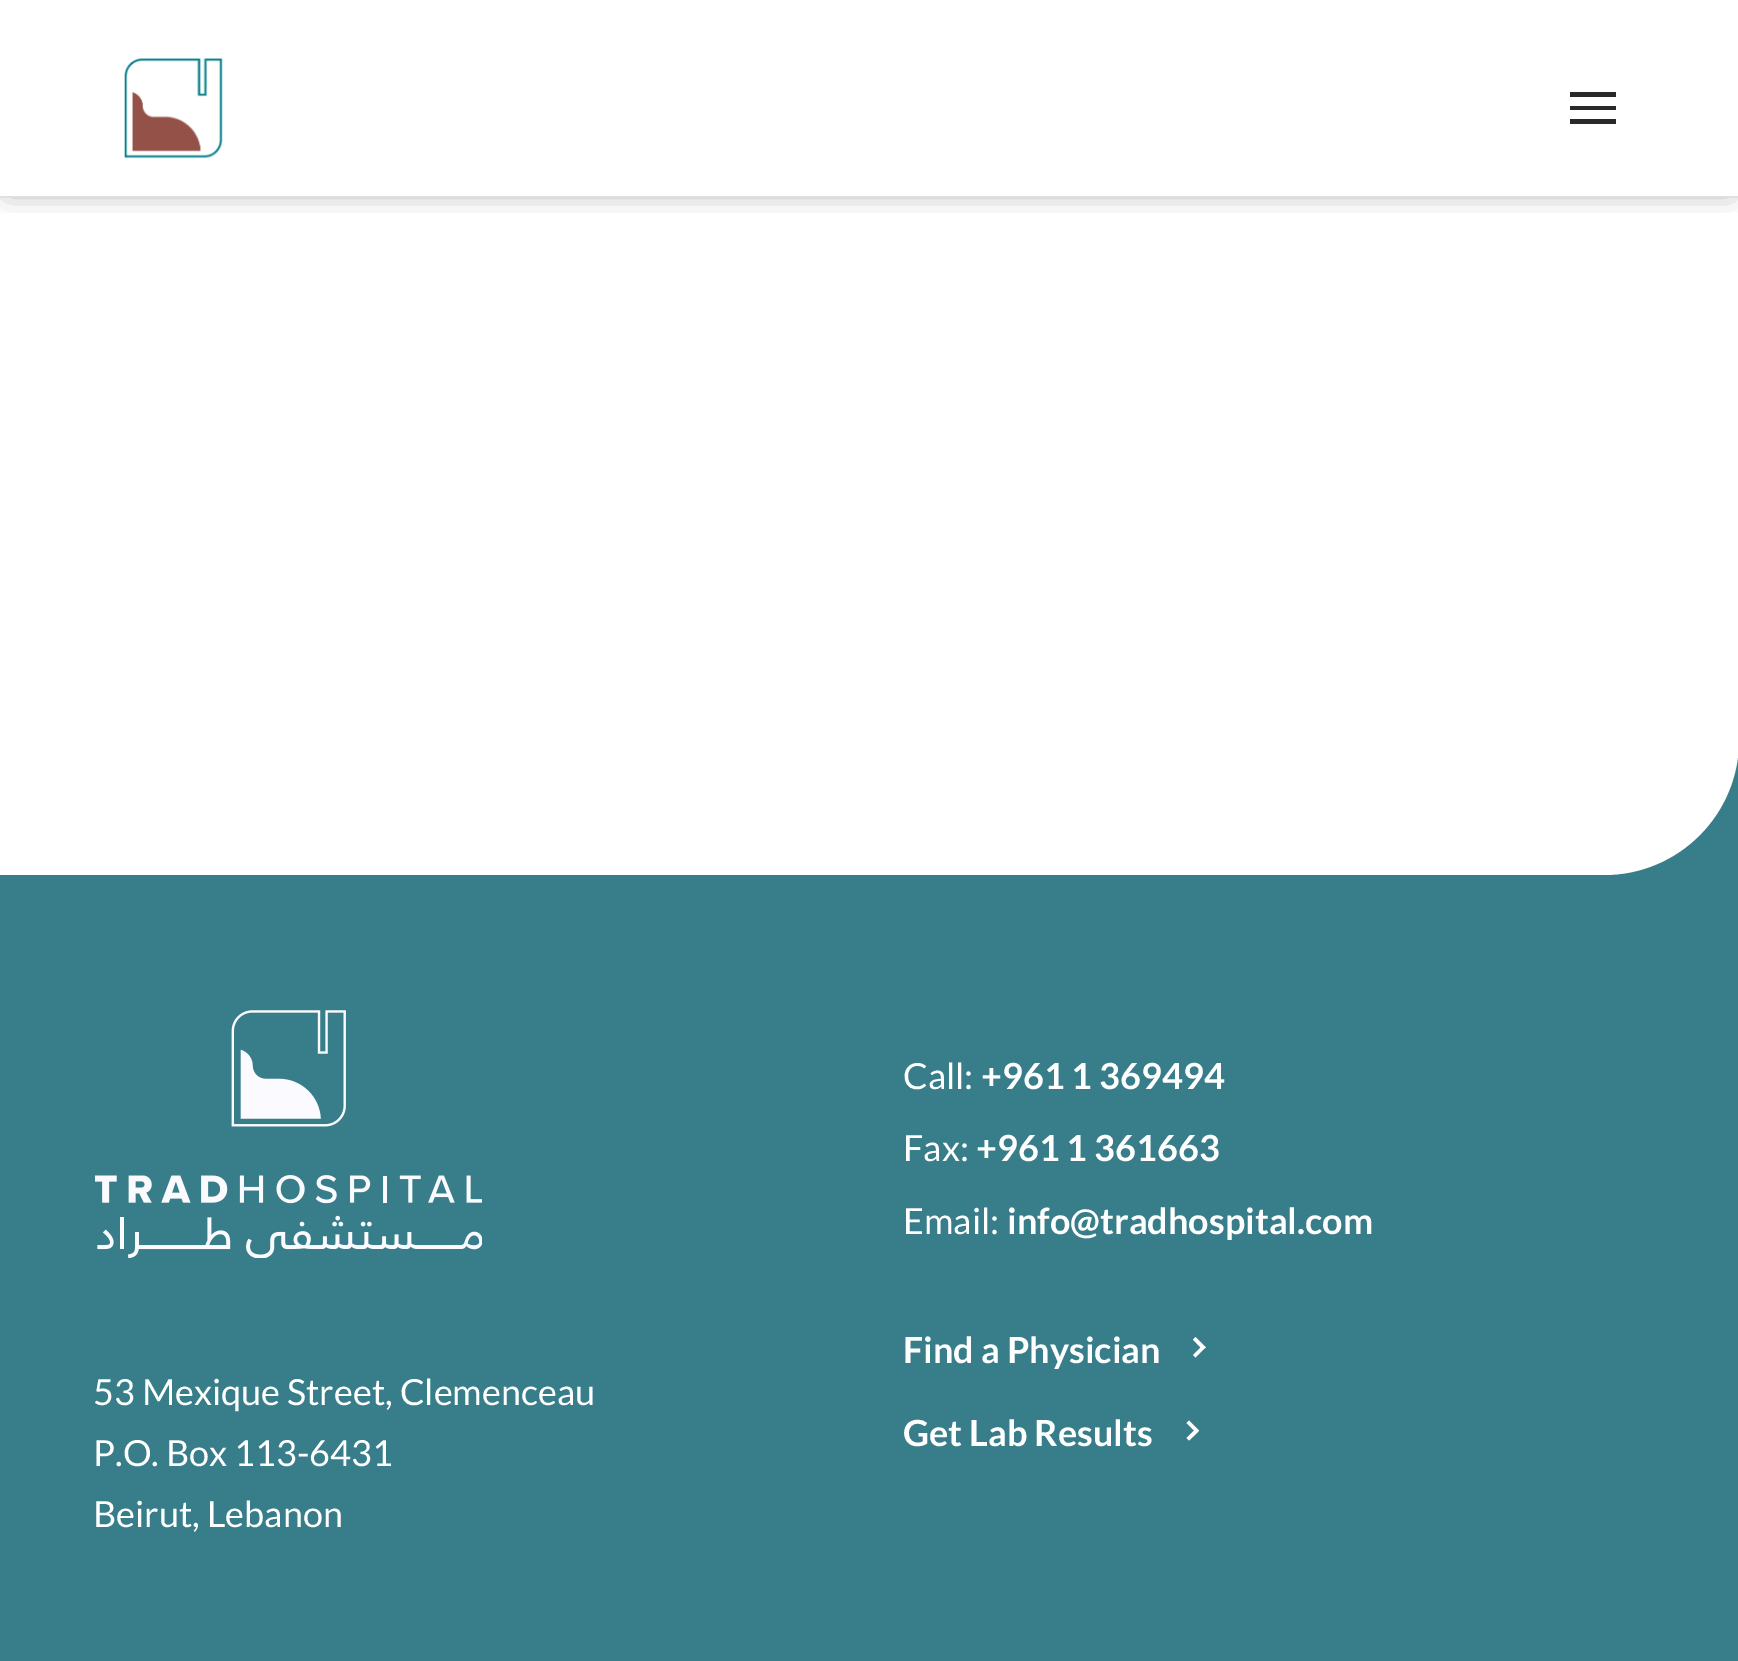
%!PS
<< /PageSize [1738 1661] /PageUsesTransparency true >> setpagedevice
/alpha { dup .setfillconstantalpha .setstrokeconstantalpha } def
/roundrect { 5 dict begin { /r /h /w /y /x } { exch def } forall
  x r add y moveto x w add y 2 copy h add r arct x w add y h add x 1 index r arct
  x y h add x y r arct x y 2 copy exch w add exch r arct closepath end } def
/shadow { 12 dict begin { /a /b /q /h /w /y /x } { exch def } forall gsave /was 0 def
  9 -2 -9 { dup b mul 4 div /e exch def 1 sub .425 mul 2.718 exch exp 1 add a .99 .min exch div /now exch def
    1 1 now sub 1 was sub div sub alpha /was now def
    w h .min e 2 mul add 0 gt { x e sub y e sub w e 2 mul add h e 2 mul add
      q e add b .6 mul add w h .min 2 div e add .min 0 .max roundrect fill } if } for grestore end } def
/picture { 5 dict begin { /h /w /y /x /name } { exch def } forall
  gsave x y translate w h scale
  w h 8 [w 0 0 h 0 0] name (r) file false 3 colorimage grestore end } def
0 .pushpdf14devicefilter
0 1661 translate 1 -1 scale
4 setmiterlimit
1 setgray
0 0 1738 1661 rectfill
gsave
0 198 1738 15 rectclip
0 setgray
9 9 1721 180 0 13.5 0.5 shadow
grestore
0.875 setgray
0 196 1738 2 rectfill
(img1.rgb) 124 58 99 101 picture
0.161 setgray
newpath 1570 92 moveto 1616 92 lineto 1616 97 lineto 1570 97 lineto closepath 1570 106 moveto 1616 106 lineto 1616 110 lineto 1570 110 lineto closepath 1570 119 moveto 1616 119 lineto 1616 124 lineto 1570 124 lineto closepath fill
0.216 0.494 0.541 setrgbcolor
1605 756 133 119 rectfill
1 setgray
newpath 0 650 moveto 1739 650 lineto 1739 740 lineto 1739 814.5 1678.5 875 1604 875 curveto 0 875 lineto closepath fill
0.216 0.494 0.541 setrgbcolor
0 875 1738 786 rectfill
(img2.rgb) 95 1010 387 248 picture
/Lato-Regular [36 0 0 -36 0 0] selectfont
1 setgray
93 1405 moveto (53 Mexique Street, Clemenceau) show
93 1466 moveto (P.O. Box 113-6431) show
93 1527 moveto (Beirut, Lebanon) show
903 1089 moveto (Call:) show
/Lato-Bold [36 0 0 -36 0 0] selectfont
981 1089 moveto (+961 1 369494) show
/Lato-Regular [36 0 0 -36 0 0] selectfont
903 1161 moveto (Fax:) show
/Lato-Bold [36 0 0 -36 0 0] selectfont
976 1161 moveto (+961 1 361663) show
/Lato-Regular [36 0 0 -36 0 0] selectfont
903 1234 moveto (Email:) show
/Lato-Bold [36 0 0 -36 0 0] selectfont
1007 1234 moveto (info@tradhospital.com) show
903 1363 moveto (Find a Physician) show
newpath 1204.5 1348.5 moveto 1206 1347.5 lineto 1195.5 1337 lineto 1193 1339.5 lineto 1200.5 1347.5 lineto 1193 1355 lineto 1195.5 1357.5 lineto closepath fill
903 1446 moveto (Get Lab Results) show
newpath 1198 1432 moveto 1199 1430.5 lineto 1189 1420.5 lineto 1186.5 1423 lineto 1194 1430.5 lineto 1186.5 1438 lineto 1189 1440.5 lineto closepath fill
.poppdf14devicefilter showpage
